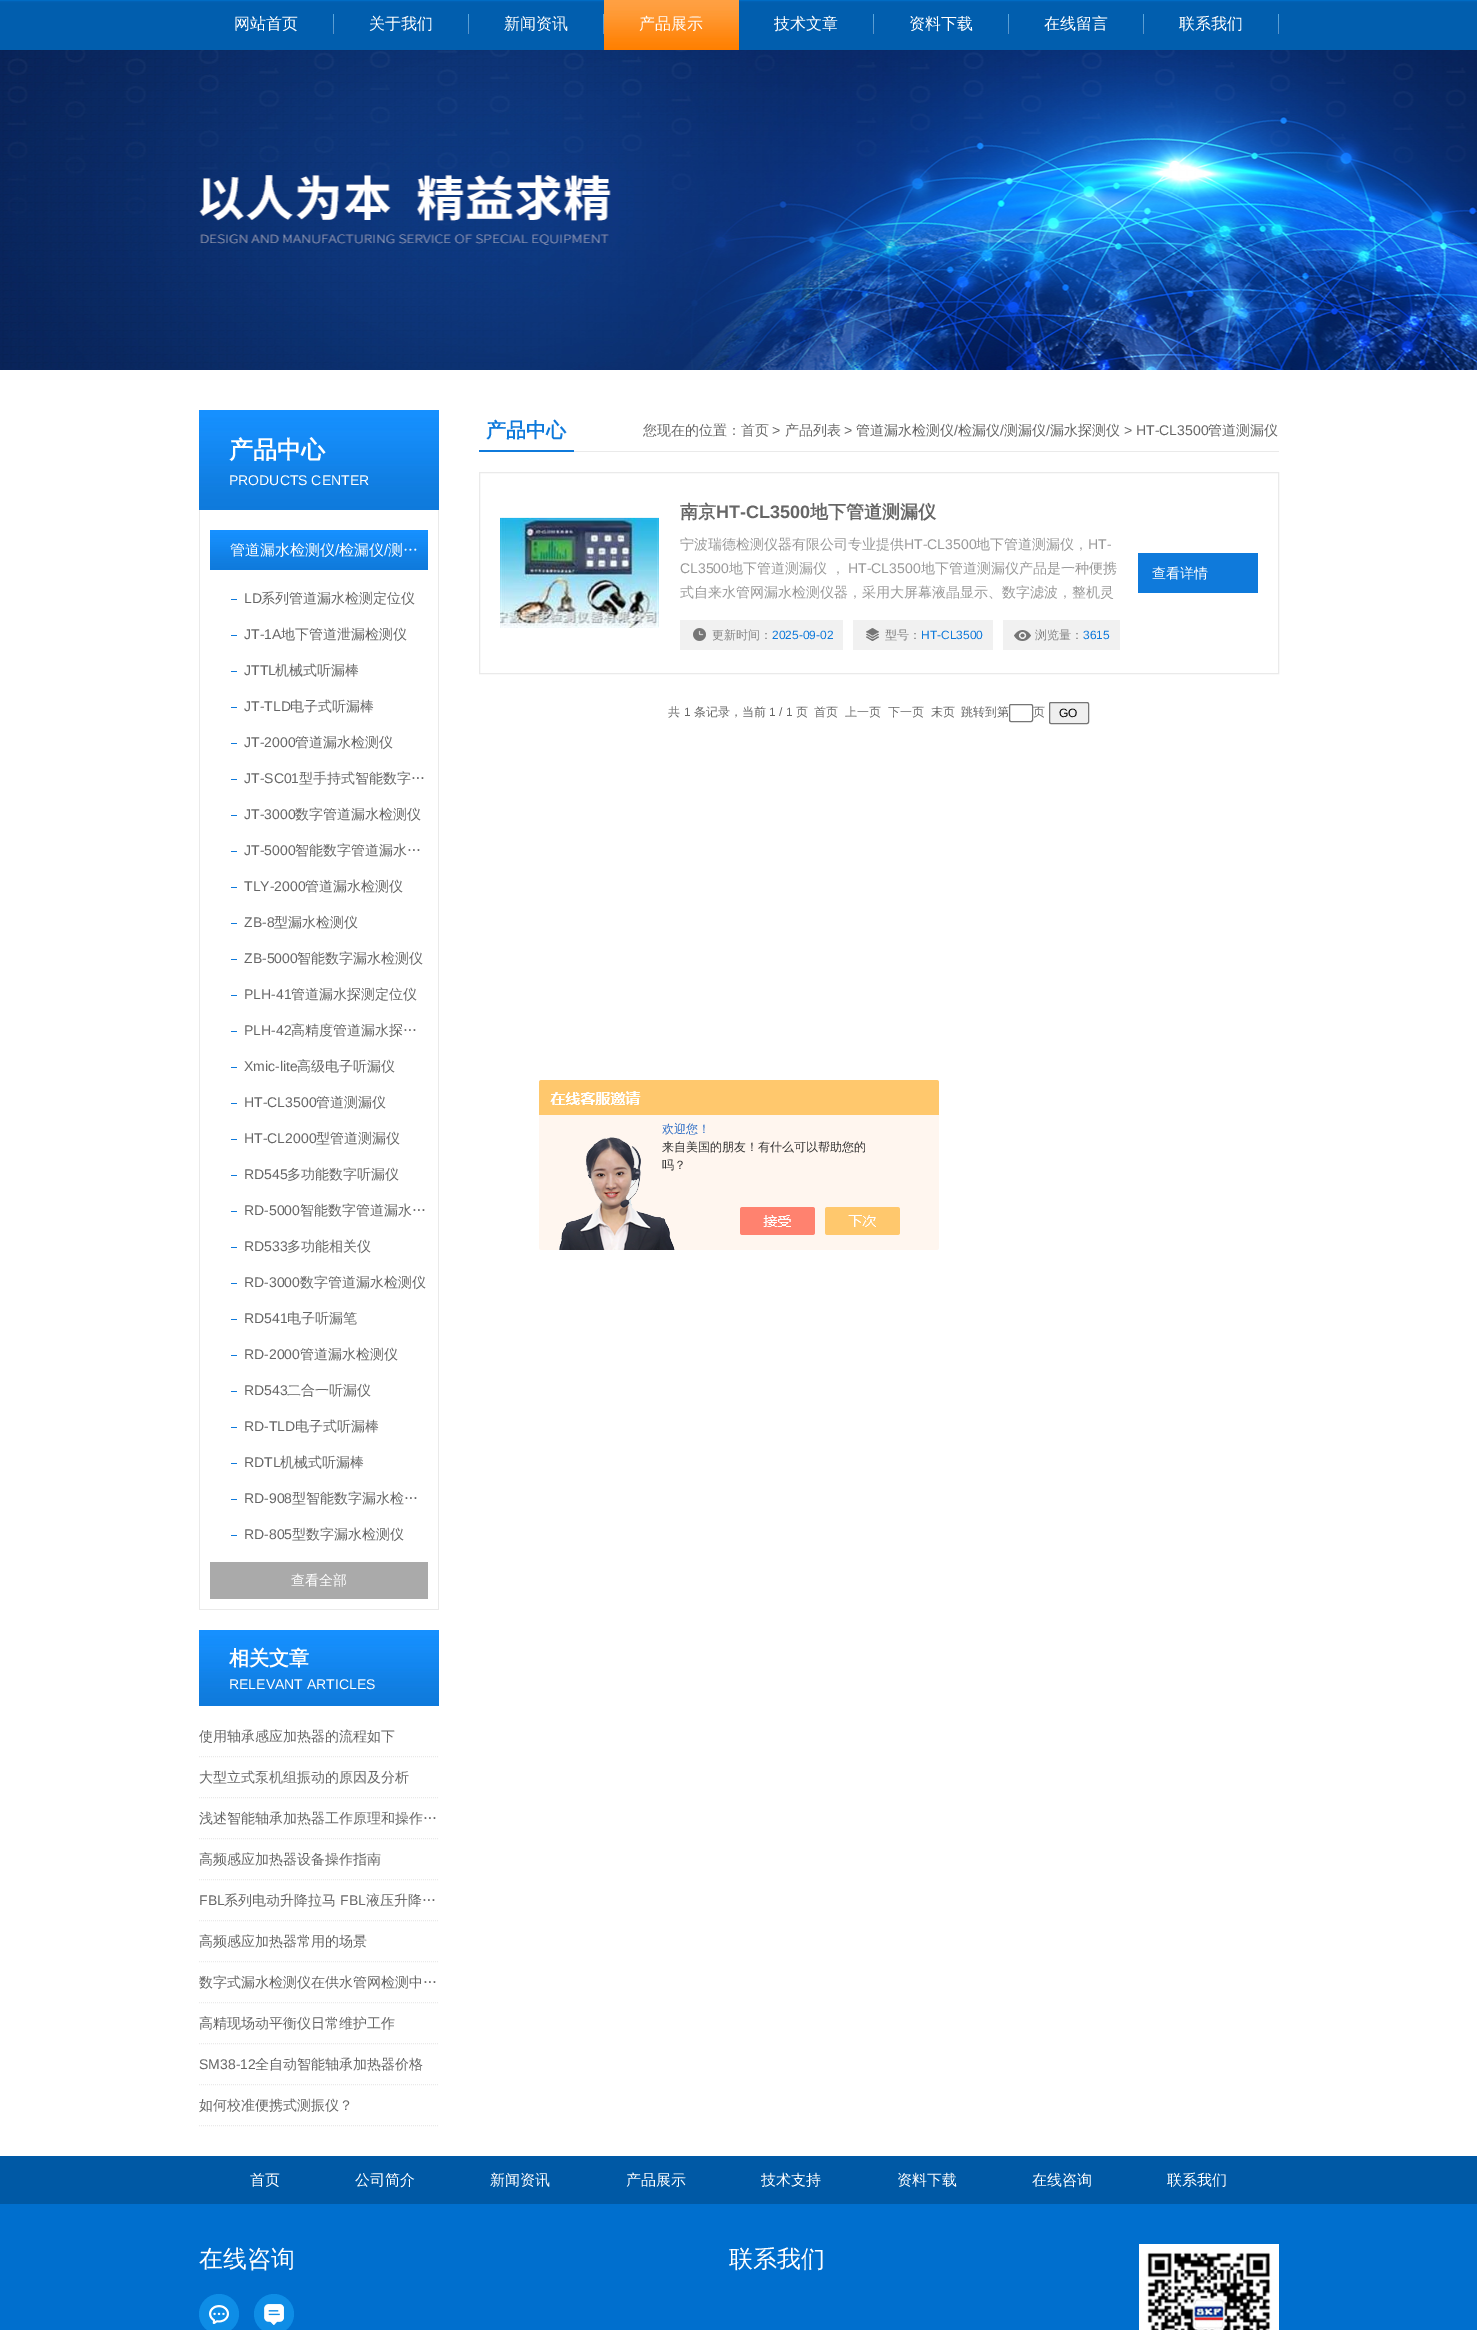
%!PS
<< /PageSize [1477 2330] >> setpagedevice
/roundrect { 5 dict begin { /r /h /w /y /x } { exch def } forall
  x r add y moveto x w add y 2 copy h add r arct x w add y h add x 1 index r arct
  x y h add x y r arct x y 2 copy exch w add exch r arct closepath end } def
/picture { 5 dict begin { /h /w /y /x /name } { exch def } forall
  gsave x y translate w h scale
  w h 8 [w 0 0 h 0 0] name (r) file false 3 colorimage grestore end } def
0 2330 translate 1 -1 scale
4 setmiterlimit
1 setgray
0 0 1477 2330 rectfill
(img1.rgb) 0 0 1477 50 picture
(img2.rgb) 333 14 1 20 picture
/WenQuanYiZenHei-Medium [16 0 0 -16 0 0] selectfont
234 29 moveto (网站首页) show
(img2.rgb) 468 14 1 20 picture
369 29 moveto (关于我们) show
(img2.rgb) 603 14 1 20 picture
504 29 moveto (新闻资讯) show
(img3.rgb) 604 0 135 50 picture
639 29 moveto (产品展示) show
(img2.rgb) 873 14 1 20 picture
774 29 moveto (技术文章) show
(img2.rgb) 1008 14 1 20 picture
909 29 moveto (资料下载) show
(img2.rgb) 1143 14 1 20 picture
1044 29 moveto (在线留言) show
(img2.rgb) 1278 14 1 20 picture
1179 29 moveto (联系我们) show
(img4.rgb) 0 50 1477 320 picture
(img5.rgb) 199 410 240 100 picture
/WenQuanYiZenHei-Bold [24 0 0 -24 0 0] selectfont
229 458 moveto (产品中心) show
/LiberationSans-Regular [14 0 0 -14 0 0] selectfont
229 485 moveto (PRODUCTS CENTER) show
0.918 setgray
438 510 1 1100 rectfill
199 1609 240 1 rectfill
199 510 1 1100 rectfill
(img6.rgb) 210 530 218 40 picture
/WenQuanYiZenHei-Medium [15 0 0 -15 0 0] selectfont
1 setgray
230 555 moveto (管道漏水检测仪) show
/LiberationSans-Regular [15 0 0 -15 0 0] selectfont
335 555 moveto (/) show
/WenQuanYiZenHei-Medium [15 0 0 -15 0 0] selectfont
339 555 moveto (检漏仪) show
/LiberationSans-Regular [15 0 0 -15 0 0] selectfont
384 555 moveto (/) show
/WenQuanYiZenHei-Medium [15 0 0 -15 0 0] selectfont
388 555 moveto (测…) show
0.059 0.478 0.859 setrgbcolor
231 599 6 1 rectfill
/LiberationSans-Regular [14 0 0 -14 0 0] selectfont
0.4 setgray
244 603 moveto (LD) show
/WenQuanYiZenHei-Medium [14 0 0 -14 0 0] selectfont
261 603 moveto (系列管道漏水检测定位仪) show
0.059 0.478 0.859 setrgbcolor
231 635 6 1 rectfill
/LiberationSans-Regular [14 0 0 -14 0 0] selectfont
0.4 setgray
244 639 moveto (JT-1A) show
/WenQuanYiZenHei-Medium [14 0 0 -14 0 0] selectfont
281 639 moveto (地下管道泄漏检测仪) show
0.059 0.478 0.859 setrgbcolor
231 671 6 1 rectfill
/LiberationSans-Regular [14 0 0 -14 0 0] selectfont
0.4 setgray
244 675 moveto (JTTL) show
/WenQuanYiZenHei-Medium [14 0 0 -14 0 0] selectfont
275 675 moveto (机械式听漏棒) show
0.059 0.478 0.859 setrgbcolor
231 707 6 1 rectfill
/LiberationSans-Regular [14 0 0 -14 0 0] selectfont
0.4 setgray
244 711 moveto (JT-TLD) show
/WenQuanYiZenHei-Medium [14 0 0 -14 0 0] selectfont
290 711 moveto (电子式听漏棒) show
0.059 0.478 0.859 setrgbcolor
231 743 6 1 rectfill
/LiberationSans-Regular [14 0 0 -14 0 0] selectfont
0.4 setgray
244 747 moveto (JT-2000) show
/WenQuanYiZenHei-Medium [14 0 0 -14 0 0] selectfont
295 747 moveto (管道漏水检测仪) show
0.059 0.478 0.859 setrgbcolor
231 779 6 1 rectfill
/LiberationSans-Regular [14 0 0 -14 0 0] selectfont
0.4 setgray
244 783 moveto (JT-SC01) show
/WenQuanYiZenHei-Medium [14 0 0 -14 0 0] selectfont
299 783 moveto (型手持式智能数字…) show
0.059 0.478 0.859 setrgbcolor
231 815 6 1 rectfill
/LiberationSans-Regular [14 0 0 -14 0 0] selectfont
0.4 setgray
244 819 moveto (JT-3000) show
/WenQuanYiZenHei-Medium [14 0 0 -14 0 0] selectfont
295 819 moveto (数字管道漏水检测仪) show
0.059 0.478 0.859 setrgbcolor
231 851 6 1 rectfill
/LiberationSans-Regular [14 0 0 -14 0 0] selectfont
0.4 setgray
244 855 moveto (JT-5000) show
/WenQuanYiZenHei-Medium [14 0 0 -14 0 0] selectfont
295 855 moveto (智能数字管道漏水…) show
0.059 0.478 0.859 setrgbcolor
231 887 6 1 rectfill
/LiberationSans-Regular [14 0 0 -14 0 0] selectfont
0.4 setgray
244 891 moveto (TLY-2000) show
/WenQuanYiZenHei-Medium [14 0 0 -14 0 0] selectfont
305 891 moveto (管道漏水检测仪) show
0.059 0.478 0.859 setrgbcolor
231 923 6 1 rectfill
/LiberationSans-Regular [14 0 0 -14 0 0] selectfont
0.4 setgray
244 927 moveto (ZB-8) show
/WenQuanYiZenHei-Medium [14 0 0 -14 0 0] selectfont
274 927 moveto (型漏水检测仪) show
0.059 0.478 0.859 setrgbcolor
231 959 6 1 rectfill
/LiberationSans-Regular [14 0 0 -14 0 0] selectfont
0.4 setgray
244 963 moveto (ZB-5000) show
/WenQuanYiZenHei-Medium [14 0 0 -14 0 0] selectfont
297 963 moveto (智能数字漏水检测仪) show
0.059 0.478 0.859 setrgbcolor
231 995 6 1 rectfill
/LiberationSans-Regular [14 0 0 -14 0 0] selectfont
0.4 setgray
244 999 moveto (PLH-41) show
/WenQuanYiZenHei-Medium [14 0 0 -14 0 0] selectfont
291 999 moveto (管道漏水探测定位仪) show
0.059 0.478 0.859 setrgbcolor
231 1031 6 1 rectfill
/LiberationSans-Regular [14 0 0 -14 0 0] selectfont
0.4 setgray
244 1035 moveto (PLH-42) show
/WenQuanYiZenHei-Medium [14 0 0 -14 0 0] selectfont
291 1035 moveto (高精度管道漏水探…) show
0.059 0.478 0.859 setrgbcolor
231 1067 6 1 rectfill
/LiberationSans-Regular [14 0 0 -14 0 0] selectfont
0.4 setgray
244 1071 moveto (Xmic-lite) show
/WenQuanYiZenHei-Medium [14 0 0 -14 0 0] selectfont
297 1071 moveto (高级电子听漏仪) show
0.059 0.478 0.859 setrgbcolor
231 1103 6 1 rectfill
/LiberationSans-Regular [14 0 0 -14 0 0] selectfont
0.4 setgray
244 1107 moveto (HT-CL3500) show
/WenQuanYiZenHei-Medium [14 0 0 -14 0 0] selectfont
316 1107 moveto (管道测漏仪) show
0.059 0.478 0.859 setrgbcolor
231 1139 6 1 rectfill
/LiberationSans-Regular [14 0 0 -14 0 0] selectfont
0.4 setgray
244 1143 moveto (HT-CL2000) show
/WenQuanYiZenHei-Medium [14 0 0 -14 0 0] selectfont
316 1143 moveto (型管道测漏仪) show
0.059 0.478 0.859 setrgbcolor
231 1175 6 1 rectfill
/LiberationSans-Regular [14 0 0 -14 0 0] selectfont
0.4 setgray
244 1179 moveto (RD545) show
/WenQuanYiZenHei-Medium [14 0 0 -14 0 0] selectfont
287 1179 moveto (多功能数字听漏仪) show
0.059 0.478 0.859 setrgbcolor
231 1211 6 1 rectfill
/LiberationSans-Regular [14 0 0 -14 0 0] selectfont
0.4 setgray
244 1215 moveto (RD-5000) show
/WenQuanYiZenHei-Medium [14 0 0 -14 0 0] selectfont
300 1215 moveto (智能数字管道漏水…) show
0.059 0.478 0.859 setrgbcolor
231 1247 6 1 rectfill
/LiberationSans-Regular [14 0 0 -14 0 0] selectfont
0.4 setgray
244 1251 moveto (RD533) show
/WenQuanYiZenHei-Medium [14 0 0 -14 0 0] selectfont
287 1251 moveto (多功能相关仪) show
0.059 0.478 0.859 setrgbcolor
231 1283 6 1 rectfill
/LiberationSans-Regular [14 0 0 -14 0 0] selectfont
0.4 setgray
244 1287 moveto (RD-3000) show
/WenQuanYiZenHei-Medium [14 0 0 -14 0 0] selectfont
300 1287 moveto (数字管道漏水检测仪) show
0.059 0.478 0.859 setrgbcolor
231 1319 6 1 rectfill
/LiberationSans-Regular [14 0 0 -14 0 0] selectfont
0.4 setgray
244 1323 moveto (RD541) show
/WenQuanYiZenHei-Medium [14 0 0 -14 0 0] selectfont
287 1323 moveto (电子听漏笔) show
0.059 0.478 0.859 setrgbcolor
231 1355 6 1 rectfill
/LiberationSans-Regular [14 0 0 -14 0 0] selectfont
0.4 setgray
244 1359 moveto (RD-2000) show
/WenQuanYiZenHei-Medium [14 0 0 -14 0 0] selectfont
300 1359 moveto (管道漏水检测仪) show
0.059 0.478 0.859 setrgbcolor
231 1391 6 1 rectfill
/LiberationSans-Regular [14 0 0 -14 0 0] selectfont
0.4 setgray
244 1395 moveto (RD543) show
/WenQuanYiZenHei-Medium [14 0 0 -14 0 0] selectfont
287 1395 moveto (二合一听漏仪) show
0.059 0.478 0.859 setrgbcolor
231 1427 6 1 rectfill
/LiberationSans-Regular [14 0 0 -14 0 0] selectfont
0.4 setgray
244 1431 moveto (RD-TLD) show
/WenQuanYiZenHei-Medium [14 0 0 -14 0 0] selectfont
295 1431 moveto (电子式听漏棒) show
0.059 0.478 0.859 setrgbcolor
231 1463 6 1 rectfill
/LiberationSans-Regular [14 0 0 -14 0 0] selectfont
0.4 setgray
244 1467 moveto (RDTL) show
/WenQuanYiZenHei-Medium [14 0 0 -14 0 0] selectfont
280 1467 moveto (机械式听漏棒) show
0.059 0.478 0.859 setrgbcolor
231 1499 6 1 rectfill
/LiberationSans-Regular [14 0 0 -14 0 0] selectfont
0.4 setgray
244 1503 moveto (RD-908) show
/WenQuanYiZenHei-Medium [14 0 0 -14 0 0] selectfont
292 1503 moveto (型智能数字漏水检…) show
0.059 0.478 0.859 setrgbcolor
231 1535 6 1 rectfill
/LiberationSans-Regular [14 0 0 -14 0 0] selectfont
0.4 setgray
244 1539 moveto (RD-805) show
/WenQuanYiZenHei-Medium [14 0 0 -14 0 0] selectfont
292 1539 moveto (型数字漏水检测仪) show
0.667 setgray
210 1562 218 37 rectfill
1 setgray
291 1585 moveto (查看全部) show
(img7.rgb) 199 1630 240 76 picture
/WenQuanYiZenHei-Bold [20 0 0 -20 0 0] selectfont
229 1665 moveto (相关文章) show
/LiberationSans-Regular [14 0 0 -14 0 0] selectfont
229 1689 moveto (RELEVANT ARTICLES) show
0.918 setgray
[1 1] 0 setdash
newpath 199 1756.5 moveto 439 1756.5 lineto stroke
/WenQuanYiZenHei-Medium [14 0 0 -14 0 0] selectfont
0.4 setgray
199 1741 moveto (使用轴承感应加热器的流程如下) show
0.918 setgray
newpath 199 1797.5 moveto 439 1797.5 lineto stroke
0.4 setgray
199 1782 moveto (大型立式泵机组振动的原因及分析) show
0.918 setgray
newpath 199 1838.5 moveto 439 1838.5 lineto stroke
0.4 setgray
199 1823 moveto (浅述智能轴承加热器工作原理和操作…) show
0.918 setgray
newpath 199 1879.5 moveto 439 1879.5 lineto stroke
0.4 setgray
199 1864 moveto (高频感应加热器设备操作指南) show
0.918 setgray
newpath 199 1920.5 moveto 439 1920.5 lineto stroke
/LiberationSans-Regular [14 0 0 -14 0 0] selectfont
0.4 setgray
199 1905 moveto (FBL) show
/WenQuanYiZenHei-Medium [14 0 0 -14 0 0] selectfont
224 1905 moveto (系列电动升降拉马) show
/LiberationSans-Regular [14 0 0 -14 0 0] selectfont
340 1905 moveto (FBL) show
/WenQuanYiZenHei-Medium [14 0 0 -14 0 0] selectfont
366 1905 moveto (液压升降…) show
0.918 setgray
newpath 199 1961.5 moveto 439 1961.5 lineto stroke
0.4 setgray
199 1946 moveto (高频感应加热器常用的场景) show
0.918 setgray
newpath 199 2002.5 moveto 439 2002.5 lineto stroke
0.4 setgray
199 1987 moveto (数字式漏水检测仪在供水管网检测中…) show
0.918 setgray
newpath 199 2043.5 moveto 439 2043.5 lineto stroke
0.4 setgray
199 2028 moveto (高精现场动平衡仪日常维护工作) show
0.918 setgray
newpath 199 2084.5 moveto 439 2084.5 lineto stroke
/LiberationSans-Regular [14 0 0 -14 0 0] selectfont
0.4 setgray
199 2069 moveto (SM38-12) show
/WenQuanYiZenHei-Medium [14 0 0 -14 0 0] selectfont
255 2069 moveto (全自动智能轴承加热器价格) show
0.918 setgray
newpath 199 2125.5 moveto 439 2125.5 lineto stroke
0.4 setgray
199 2110 moveto (如何校准便携式测振仪？) show
0.918 setgray
574 451 705 1 rectfill
0.059 0.478 0.859 setrgbcolor
479 450 95 2 rectfill
/WenQuanYiZenHei-Bold [20 0 0 -20 0 0] selectfont
486 437 moveto (产品中心) show
/WenQuanYiZenHei-Medium [14 0 0 -14 0 0] selectfont
0.4 setgray
643 435 moveto (您现在的位置：首页) show
/LiberationSans-Regular [14 0 0 -14 0 0] selectfont
772 435 moveto (>) show
/WenQuanYiZenHei-Medium [14 0 0 -14 0 0] selectfont
785 435 moveto (产品列表) show
/LiberationSans-Regular [14 0 0 -14 0 0] selectfont
844 435 moveto (>) show
/WenQuanYiZenHei-Medium [14 0 0 -14 0 0] selectfont
856 435 moveto (管道漏水检测仪) show
/LiberationSans-Regular [14 0 0 -14 0 0] selectfont
954 435 moveto (/) show
/WenQuanYiZenHei-Medium [14 0 0 -14 0 0] selectfont
958 435 moveto (检漏仪) show
/LiberationSans-Regular [14 0 0 -14 0 0] selectfont
1000 435 moveto (/) show
/WenQuanYiZenHei-Medium [14 0 0 -14 0 0] selectfont
1004 435 moveto (测漏仪) show
/LiberationSans-Regular [14 0 0 -14 0 0] selectfont
1046 435 moveto (/) show
/WenQuanYiZenHei-Medium [14 0 0 -14 0 0] selectfont
1050 435 moveto (漏水探测仪) show
/LiberationSans-Regular [14 0 0 -14 0 0] selectfont
1124 435 moveto (> HT-CL3500) show
/WenQuanYiZenHei-Medium [14 0 0 -14 0 0] selectfont
1208 435 moveto (管道测漏仪) show
0.918 setgray
[] 0 setdash
479.5 472.5 799 201 rectstroke
(img8.rgb) 500 517 159 111 picture
/WenQuanYiZenHei-Bold [18 0 0 -18 0 0] selectfont
0.4 setgray
680 518 moveto (南京) show
/LiberationSans-Bold [18 0 0 -18 0 0] selectfont
716 518 moveto (HT-CL3500) show
/WenQuanYiZenHei-Bold [18 0 0 -18 0 0] selectfont
810 518 moveto (地下管道测漏仪) show
/WenQuanYiZenHei-Medium [14 0 0 -14 0 0] selectfont
0.6 setgray
680 549 moveto (宁波瑞德检测仪器有限公司专业提供) show
/LiberationSans-Regular [14 0 0 -14 0 0] selectfont
904 549 moveto (HT-CL3500) show
/WenQuanYiZenHei-Medium [14 0 0 -14 0 0] selectfont
976 549 moveto (地下管道测漏仪，) show
/LiberationSans-Regular [14 0 0 -14 0 0] selectfont
1088 549 moveto (HT-) show
680 573 moveto (CL3500) show
/WenQuanYiZenHei-Medium [14 0 0 -14 0 0] selectfont
729 573 moveto (地下管道测漏仪 ，) show
/LiberationSans-Regular [14 0 0 -14 0 0] selectfont
848 573 moveto (HT-CL3500) show
/WenQuanYiZenHei-Medium [14 0 0 -14 0 0] selectfont
921 573 moveto (地下管道测漏仪产品是一种便携) show
680 597 moveto (式自来水管网漏水检测仪器，采用大屏幕液晶显示、数字滤波，整机灵) show
0.945 setgray
680 620 163 30 rectfill
(img9.rgb) 693 628 13 13 picture
/WenQuanYiZenHei-Medium [12 0 0 -12 0 0] selectfont
0.51 setgray
712 639 moveto (更新时间：) show
/LiberationSans-Regular [12 0 0 -12 0 0] selectfont
0.059 0.478 0.859 setrgbcolor
772 639 moveto (2025-09-02) show
0.945 setgray
853 620 140 30 rectfill
(img10.rgb) 866 628 13 13 picture
/WenQuanYiZenHei-Medium [12 0 0 -12 0 0] selectfont
0.51 setgray
885 639 moveto (型号：) show
/LiberationSans-Regular [12 0 0 -12 0 0] selectfont
0.059 0.478 0.859 setrgbcolor
921 639 moveto (HT-CL3500) show
0.945 setgray
1003 620 117 30 rectfill
(img11.rgb) 1014 630 17 11 picture
/WenQuanYiZenHei-Medium [12 0 0 -12 0 0] selectfont
0.51 setgray
1035 639 moveto (浏览量：) show
/LiberationSans-Regular [12 0 0 -12 0 0] selectfont
0.059 0.478 0.859 setrgbcolor
1083 639 moveto (3615) show
1138 553 120 40 rectfill
/WenQuanYiZenHei-Medium [14 0 0 -14 0 0] selectfont
1 setgray
1152 578 moveto (查看详情) show
/WenQuanYiZenHei-Medium [12 0 0 -12 0 0] selectfont
0.4 setgray
668 716 moveto (共) show
/LiberationSans-Regular [12 0 0 -12 0 0] selectfont
684 716 moveto (1) show
/WenQuanYiZenHei-Medium [12 0 0 -12 0 0] selectfont
694 716 moveto (条记录，当前) show
/LiberationSans-Regular [12 0 0 -12 0 0] selectfont
769 716 moveto (1 / 1) show
/WenQuanYiZenHei-Medium [12 0 0 -12 0 0] selectfont
796 716 moveto (页) show
814 716 moveto (首页) show
845 716 moveto (上一页) show
888 716 moveto (下一页) show
931 716 moveto (末页) show
961 716 moveto (跳转到第) show
0.463 setgray
1009.5 704.5 23 17 1.5 roundrect stroke
0.4 setgray
1033 716 moveto (页) show
0.937 setgray
1049.5 702.5 39 21 1.5 roundrect gsave fill grestore
0.463 setgray
stroke
/LiberationSans-Regular [12 0 0 -12 0 0] selectfont
0 setgray
1059 717 moveto (GO) show
(img12.rgb) 539 1080 400 170 picture
/WenQuanYiZenHei-Medium [12 0 0 -12 0 0] selectfont
0.18 0.431 0.776 setrgbcolor
662 1133 moveto (欢迎您！) show
0.2 setgray
662 1151 moveto (来自美国的朋友！有什么可以帮助您的) show
662 1169 moveto (吗？) show
0 0.435 0.808 setrgbcolor
0 2204 1477 126 rectfill
0 0.349 0.647 setrgbcolor
0 2156 1477 48 rectfill
/WenQuanYiZenHei-Medium [15 0 0 -15 0 0] selectfont
1 setgray
250 2185 moveto (首页) show
355 2185 moveto (公司简介) show
490 2185 moveto (新闻资讯) show
626 2185 moveto (产品展示) show
761 2185 moveto (技术支持) show
897 2185 moveto (资料下载) show
1032 2185 moveto (在线咨询) show
1167 2185 moveto (联系我们) show
/WenQuanYiZenHei-Medium [24 0 0 -24 0 0] selectfont
199 2267 moveto (在线咨询) show
0.055 0.553 0.902 setrgbcolor
newpath 219 2314 20 0 360 arc closepath fill
(img13.rgb) 209 2305 20 19 picture
newpath 274 2314 20 0 360 arc closepath fill
(img14.rgb) 264 2304 20 21 picture
1 setgray
729 2267 moveto (联系我们) show
(img15.rgb) 1139 2244 140 86 picture
showpage
